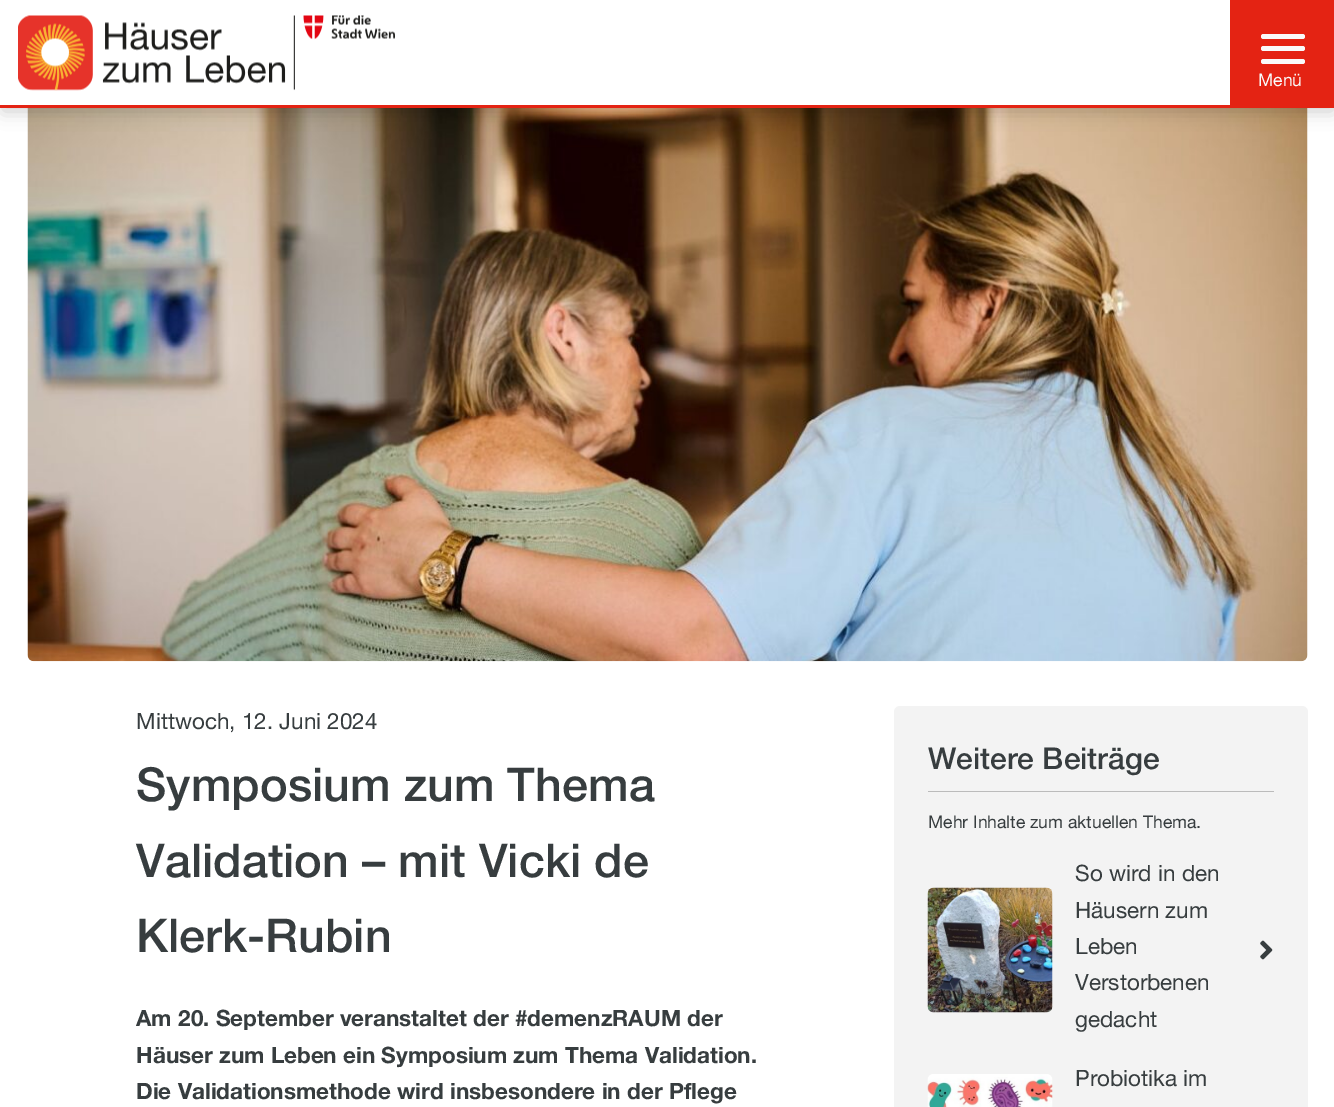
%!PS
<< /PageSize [1334 1107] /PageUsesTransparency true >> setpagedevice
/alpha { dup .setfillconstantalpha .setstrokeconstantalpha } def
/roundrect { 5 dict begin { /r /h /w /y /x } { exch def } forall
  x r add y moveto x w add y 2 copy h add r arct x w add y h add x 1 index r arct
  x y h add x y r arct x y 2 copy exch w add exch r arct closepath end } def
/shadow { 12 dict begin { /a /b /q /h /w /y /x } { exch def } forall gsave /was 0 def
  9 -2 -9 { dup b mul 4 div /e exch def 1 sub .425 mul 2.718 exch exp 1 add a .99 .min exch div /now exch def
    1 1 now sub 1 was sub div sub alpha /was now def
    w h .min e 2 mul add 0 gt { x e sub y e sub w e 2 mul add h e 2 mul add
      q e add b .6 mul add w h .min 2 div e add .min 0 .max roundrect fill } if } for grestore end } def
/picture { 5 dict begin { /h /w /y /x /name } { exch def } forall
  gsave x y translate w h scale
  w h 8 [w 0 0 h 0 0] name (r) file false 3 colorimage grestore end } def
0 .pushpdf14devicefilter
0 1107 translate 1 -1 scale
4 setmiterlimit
1 setgray
0 0 1334 1107 rectfill
(img2.rgb) 27 108 1281 554 picture
0 setgray
3 9 1330 102 0 9 0.2 shadow
1 setgray
0 0 1230 105 rectfill
0.894 0.137 0.075 setrgbcolor
0 105 1334 3 rectfill
(img1.rgb) 18 15 377 76 picture
1230 0 104 105 rectfill
0.98 setgray
1261 34 44 5 2.5 roundrect fill
1261 46 44 5 2.5 roundrect fill
1261 59 44 5 2.5 roundrect fill
/HelveticaNeue-Regular [17.5 0 0 -17.5 0 0] selectfont
1258 86 moveto (Menü) show
/HelveticaNeue-Regular [22.5 0 0 -22.5 0 0] selectfont
0.216 0.239 0.247 setrgbcolor
136 729 moveto (Mittwoch, 12. Juni 2024) show
/HelveticaNeue-Medium [46.75 0 0 -46.75 0 0] selectfont
136 801 moveto (Symposium zum Thema) show
136 877 moveto (Validation – mit Vicki de) show
136 952 moveto (Klerk-Rubin) show
/HelveticaNeue-Bold [22.5 0 0 -22.5 0 0] selectfont
136 1026 moveto (Am 20. September veranstaltet der #demenzRAUM der) show
136 1063 moveto (Häuser zum Leben ein Symposium zum Thema Validation.) show
136 1099 moveto (Die Validationsmethode wird insbesondere in der Pflege) show
0.953 setgray
894 706 414 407 6 roundrect fill
0.733 setgray
928 791 346 1 rectfill
/HelveticaNeue-Medium [30 0 0 -30 0 0] selectfont
0.216 0.239 0.247 setrgbcolor
928 769 moveto (Weitere Beiträge) show
/HelveticaNeue-Regular [17.5 0 0 -17.5 0 0] selectfont
928 828 moveto (Mehr Inhalte zum aktuellen Thema.) show
(img3.rgb) 927 887 126 126 picture
/HelveticaNeue-Regular [22.5 0 0 -22.5 0 0] selectfont
1075 881 moveto (So wird in den) show
1075 918 moveto (Häusern zum) show
1075 954 moveto (Leben) show
1075 990 moveto (Verstorbenen) show
1075 1027 moveto (gedacht) show
(img4.rgb) 1260 940 13 20 picture
(img5.rgb) 927 1074 126 33 picture
1075 1086 moveto (Probiotika im) show
.poppdf14devicefilter showpage
